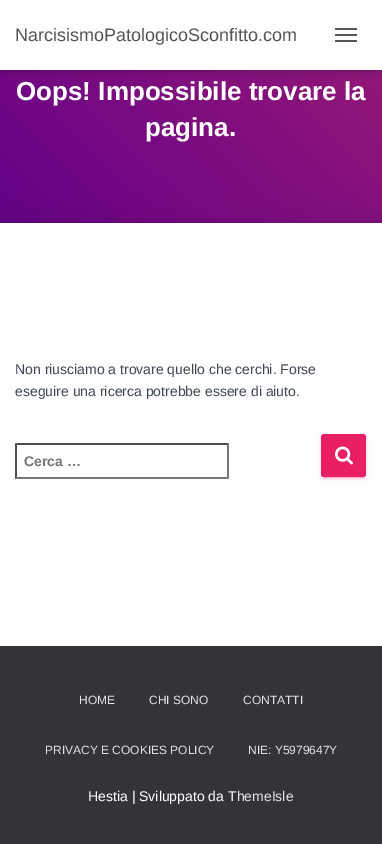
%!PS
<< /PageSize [382 844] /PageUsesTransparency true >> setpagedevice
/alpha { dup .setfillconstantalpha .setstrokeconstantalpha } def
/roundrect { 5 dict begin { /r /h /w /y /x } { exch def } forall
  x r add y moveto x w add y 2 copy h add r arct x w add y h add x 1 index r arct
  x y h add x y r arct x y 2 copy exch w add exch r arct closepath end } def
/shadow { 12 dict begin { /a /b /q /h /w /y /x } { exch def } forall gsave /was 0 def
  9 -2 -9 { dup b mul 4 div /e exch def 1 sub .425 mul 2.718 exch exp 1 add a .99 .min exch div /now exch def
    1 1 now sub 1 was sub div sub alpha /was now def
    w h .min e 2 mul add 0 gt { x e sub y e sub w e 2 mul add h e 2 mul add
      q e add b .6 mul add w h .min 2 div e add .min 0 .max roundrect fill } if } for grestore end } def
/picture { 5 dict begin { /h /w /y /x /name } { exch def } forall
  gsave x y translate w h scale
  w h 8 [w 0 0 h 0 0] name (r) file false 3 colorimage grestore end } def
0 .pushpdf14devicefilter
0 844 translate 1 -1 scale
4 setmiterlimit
1 setgray
0 0 382 844 rectfill
gsave newpath 0 70 moveto 382 70 lineto 382 223 lineto 0 223 lineto closepath clip newpath
<< /ShadingType 2 /ColorSpace /DeviceRGB /Coords [5.5 289 376 -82] /Extend [true true] /Function << /FunctionType 2 /Domain [0 1] /C0 [0.369 0 0.537] /C1 [0.627 0.11 0.455] /N 1 >> >> shfill grestore
0 setgray
2 6 378 66 0 2.5 0.1 shadow
0 1 382 70 0 5 0.12 shadow
6 7 370 58 0 5 0.42 shadow
1 setgray
0 0 382 70 rectfill
/LiberationSans-Regular [18 0 0 -18 0 0] selectfont
0.333 setgray
15 41 moveto (NarcisismoPatologicoSconfitto.com) show
335 28 22 2 1 roundrect fill
335 34 22 2 1 roundrect fill
335 40 22 2 1 roundrect fill
/LiberationSans-Bold [26 0 0 -26 0 0] selectfont
1 setgray
16 100 moveto (Oops! Impossibile trovare la) show
145 136 moveto (pagina.) show
0 setgray
-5 224 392 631 0 15 0.12 shadow
1 setgray
0 223 382 423 rectfill
/LiberationSans-Regular [14 0 0 -14 0 0] selectfont
0.235 0.282 0.345 setrgbcolor
15 374 moveto (Non riusciamo a trovare quello che cerchi. Forse) show
15 396 moveto (eseguire una ricerca potrebbe essere di aiuto.) show
0.31 setgray
newpath 15 443 moveto 229 443 lineto 227 445 lineto 17 445 lineto closepath fill
0.463 setgray
newpath 229 443 moveto 229 479 lineto 227 477 lineto 227 445 lineto closepath fill
newpath 229 479 moveto 15 479 lineto 17 477 lineto 227 477 lineto closepath fill
0.31 setgray
newpath 15 479 moveto 15 443 lineto 17 445 lineto 17 477 lineto closepath fill
/LiberationSans-Bold [14 0 0 -14 0 0] selectfont
0.459 setgray
24 466 moveto (Cerca …) show
0.914 0.118 0.388 setrgbcolor
321 435 45 43 3 2.5 0.12 shadow
323 439 41 39 1 0.5 0.2 shadow
321 436 45 43 3 1 0.14 shadow
321 434 45 43 3 roundrect fill
(img1.rgb) 335 446 18 19 picture
0.196 0.204 0.216 setrgbcolor
0 646 382 198 rectfill
/LiberationSans-Regular [12 0 0 -12 0 0] selectfont
0.886 0.89 0.89 setrgbcolor
79 704 moveto (HOME) show
149 704 moveto (CHI SONO) show
243 704 moveto (CONTATTI) show
45 754 moveto (PRIVACY E COOKIES POLICY) show
248 754 moveto (NIE: Y5979647Y) show
/LiberationSans-Regular [14 0 0 -14 0 0] selectfont
1 setgray
88 801 moveto (Hestia | Sviluppato da) show
0.886 0.89 0.89 setrgbcolor
228 801 moveto (ThemeIsle) show
.poppdf14devicefilter showpage
